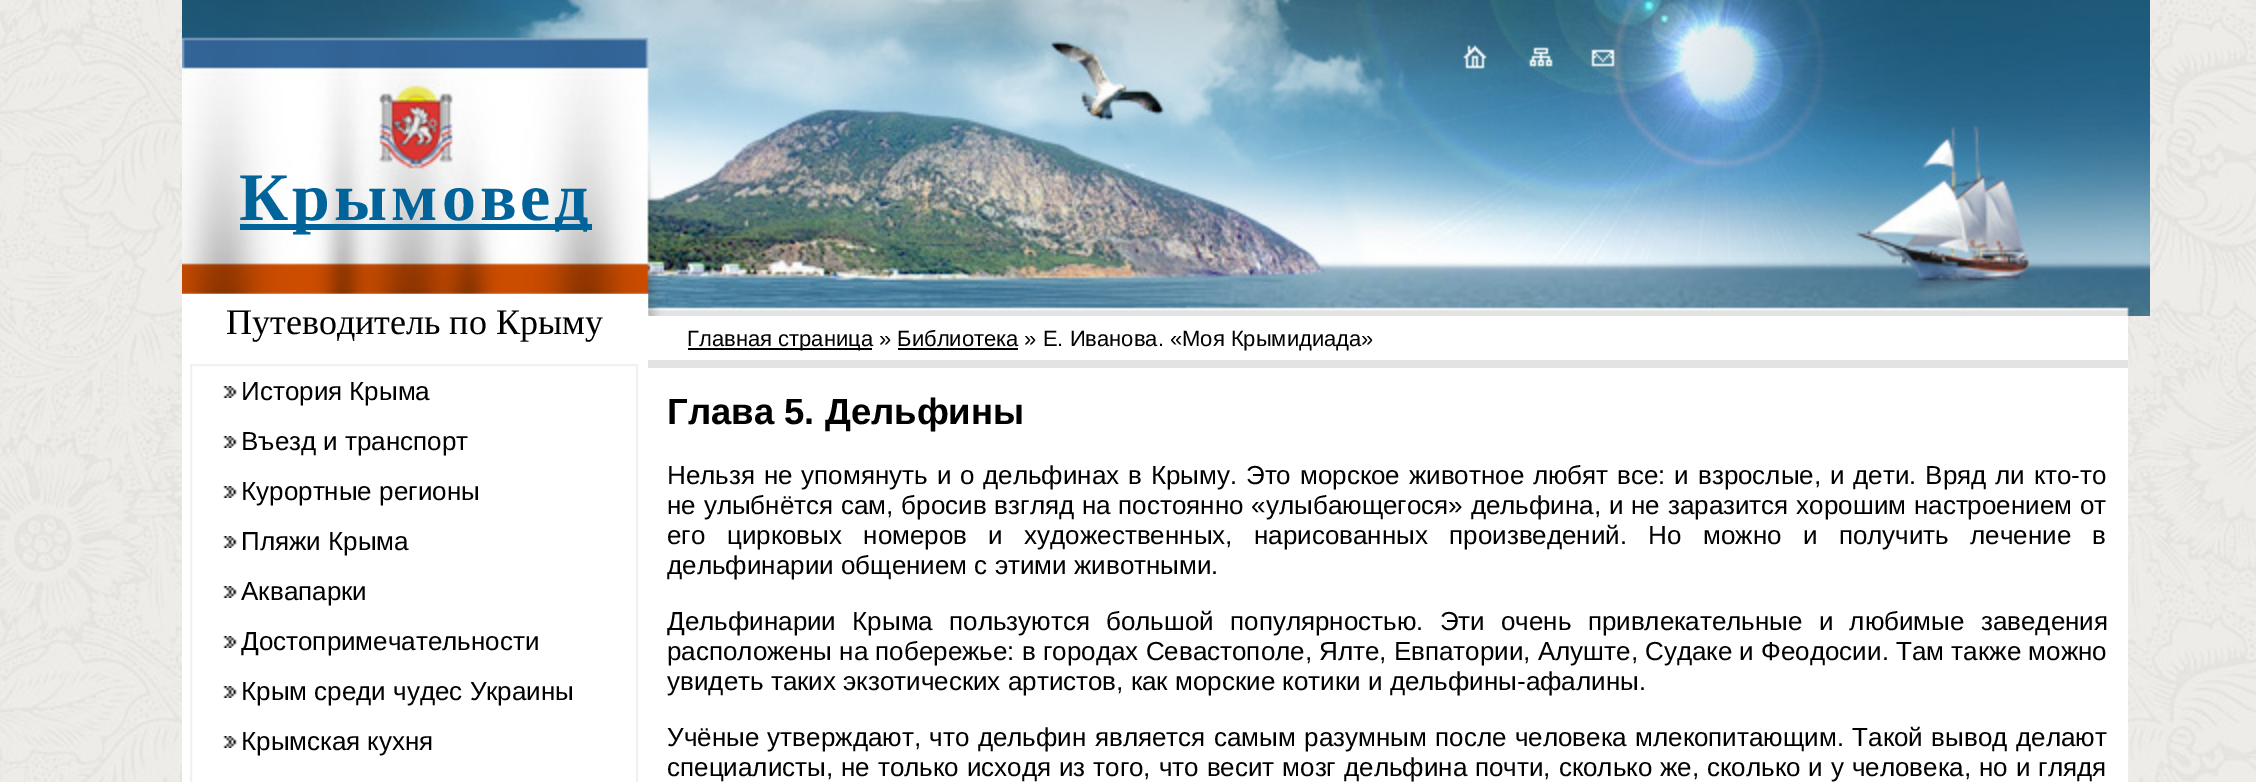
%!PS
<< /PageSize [2256 782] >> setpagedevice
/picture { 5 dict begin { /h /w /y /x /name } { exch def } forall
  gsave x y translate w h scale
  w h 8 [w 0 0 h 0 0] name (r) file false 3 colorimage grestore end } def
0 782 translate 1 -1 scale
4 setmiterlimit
1 setgray
0 0 2256 782 rectfill
(img1.rgb) 0 0 2256 782 picture
(img2.rgb) 182 0 1968 316 picture
0 0.392 0.604 setrgbcolor
240 224 352 6 rectfill
/LiberationSerif-Bold [68 0 0 -68 0 0] selectfont
239 220 moveto 4 0 (Крымовед) ashow
1 setgray
182 294 466 488 rectfill
/LiberationSerif-Regular [36 0 0 -36 0 0] selectfont
0 setgray
226 334 moveto (Путеводитель по Крыму) show
0.945 setgray
2 setlinewidth
191 365 446 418 rectstroke
(img3.rgb) 223 386 14 12 picture
/LiberationSans-Regular [26 0 0 -26 0 0] selectfont
0 setgray
241 400 moveto (История Крыма) show
(img3.rgb) 223 436 14 12 picture
241 450 moveto (Въезд и транспорт) show
(img3.rgb) 223 486 14 12 picture
241 500 moveto (Курортные регионы) show
(img3.rgb) 223 536 14 12 picture
241 550 moveto (Пляжи Крыма) show
(img3.rgb) 223 586 14 12 picture
241 600 moveto (Аквапарки) show
(img3.rgb) 223 636 14 12 picture
241 650 moveto (Достопримечательности) show
(img3.rgb) 223 686 14 12 picture
241 700 moveto (Крым среди чудес Украины) show
(img3.rgb) 223 736 14 12 picture
241 750 moveto (Крымская кухня) show
1 setgray
648 316 1480 466 rectfill
0.89 setgray
648 360 1480 8 rectfill
0 setgray
688 348 184 2 rectfill
/LiberationSans-Regular [22 0 0 -22 0 0] selectfont
687 346 moveto (Главная страница » Библиотека » Е. Иванова. «Моя Крымидиада») show
898 348 120 2 rectfill
/LiberationSans-Bold [36.5 0 0 -36.5 0 0] selectfont
667 424 moveto (Глава 5. Дельфины) show
/LiberationSans-Regular [26 0 0 -26 0 0] selectfont
667 484 moveto 1.6 0 32 (Нельзя не упомянуть и о дельфинах в Крыму. Это морское животное любят все: и взрослые, и дети. Вряд ли кто-то) widthshow
667 514 moveto 0.6 0 32 (не улыбнётся сам, бросив взгляд на постоянно «улыбающегося» дельфина, и не заразится хорошим настроением от) widthshow
667 544 moveto 14.1 0 32 (его цирковых номеров и художественных, нарисованных произведений. Но можно и получить лечение в) widthshow
667 574 moveto (дельфинарии общением с этими животными.) show
667 630 moveto 9 0 32 (Дельфинарии Крыма пользуются большой популярностью. Эти очень привлекательные и любимые заведения) widthshow
667 660 moveto (расположены на побережье: в городах Севастополе, Ялте, Евпатории, Алуште, Судаке и Феодосии. Там также можно) show
667 690 moveto (увидеть таких экзотических артистов, как морские котики и дельфины-афалины.) show
667 746 moveto 1.25 0 32 (Учёные утверждают, что дельфин является самым разумным после человека млекопитающим. Такой вывод делают) widthshow
667 776 moveto 0.75 0 32 (специалисты, не только исходя из того, что весит мозг дельфина почти, сколько же, сколько и у человека, но и глядя) widthshow
showpage
